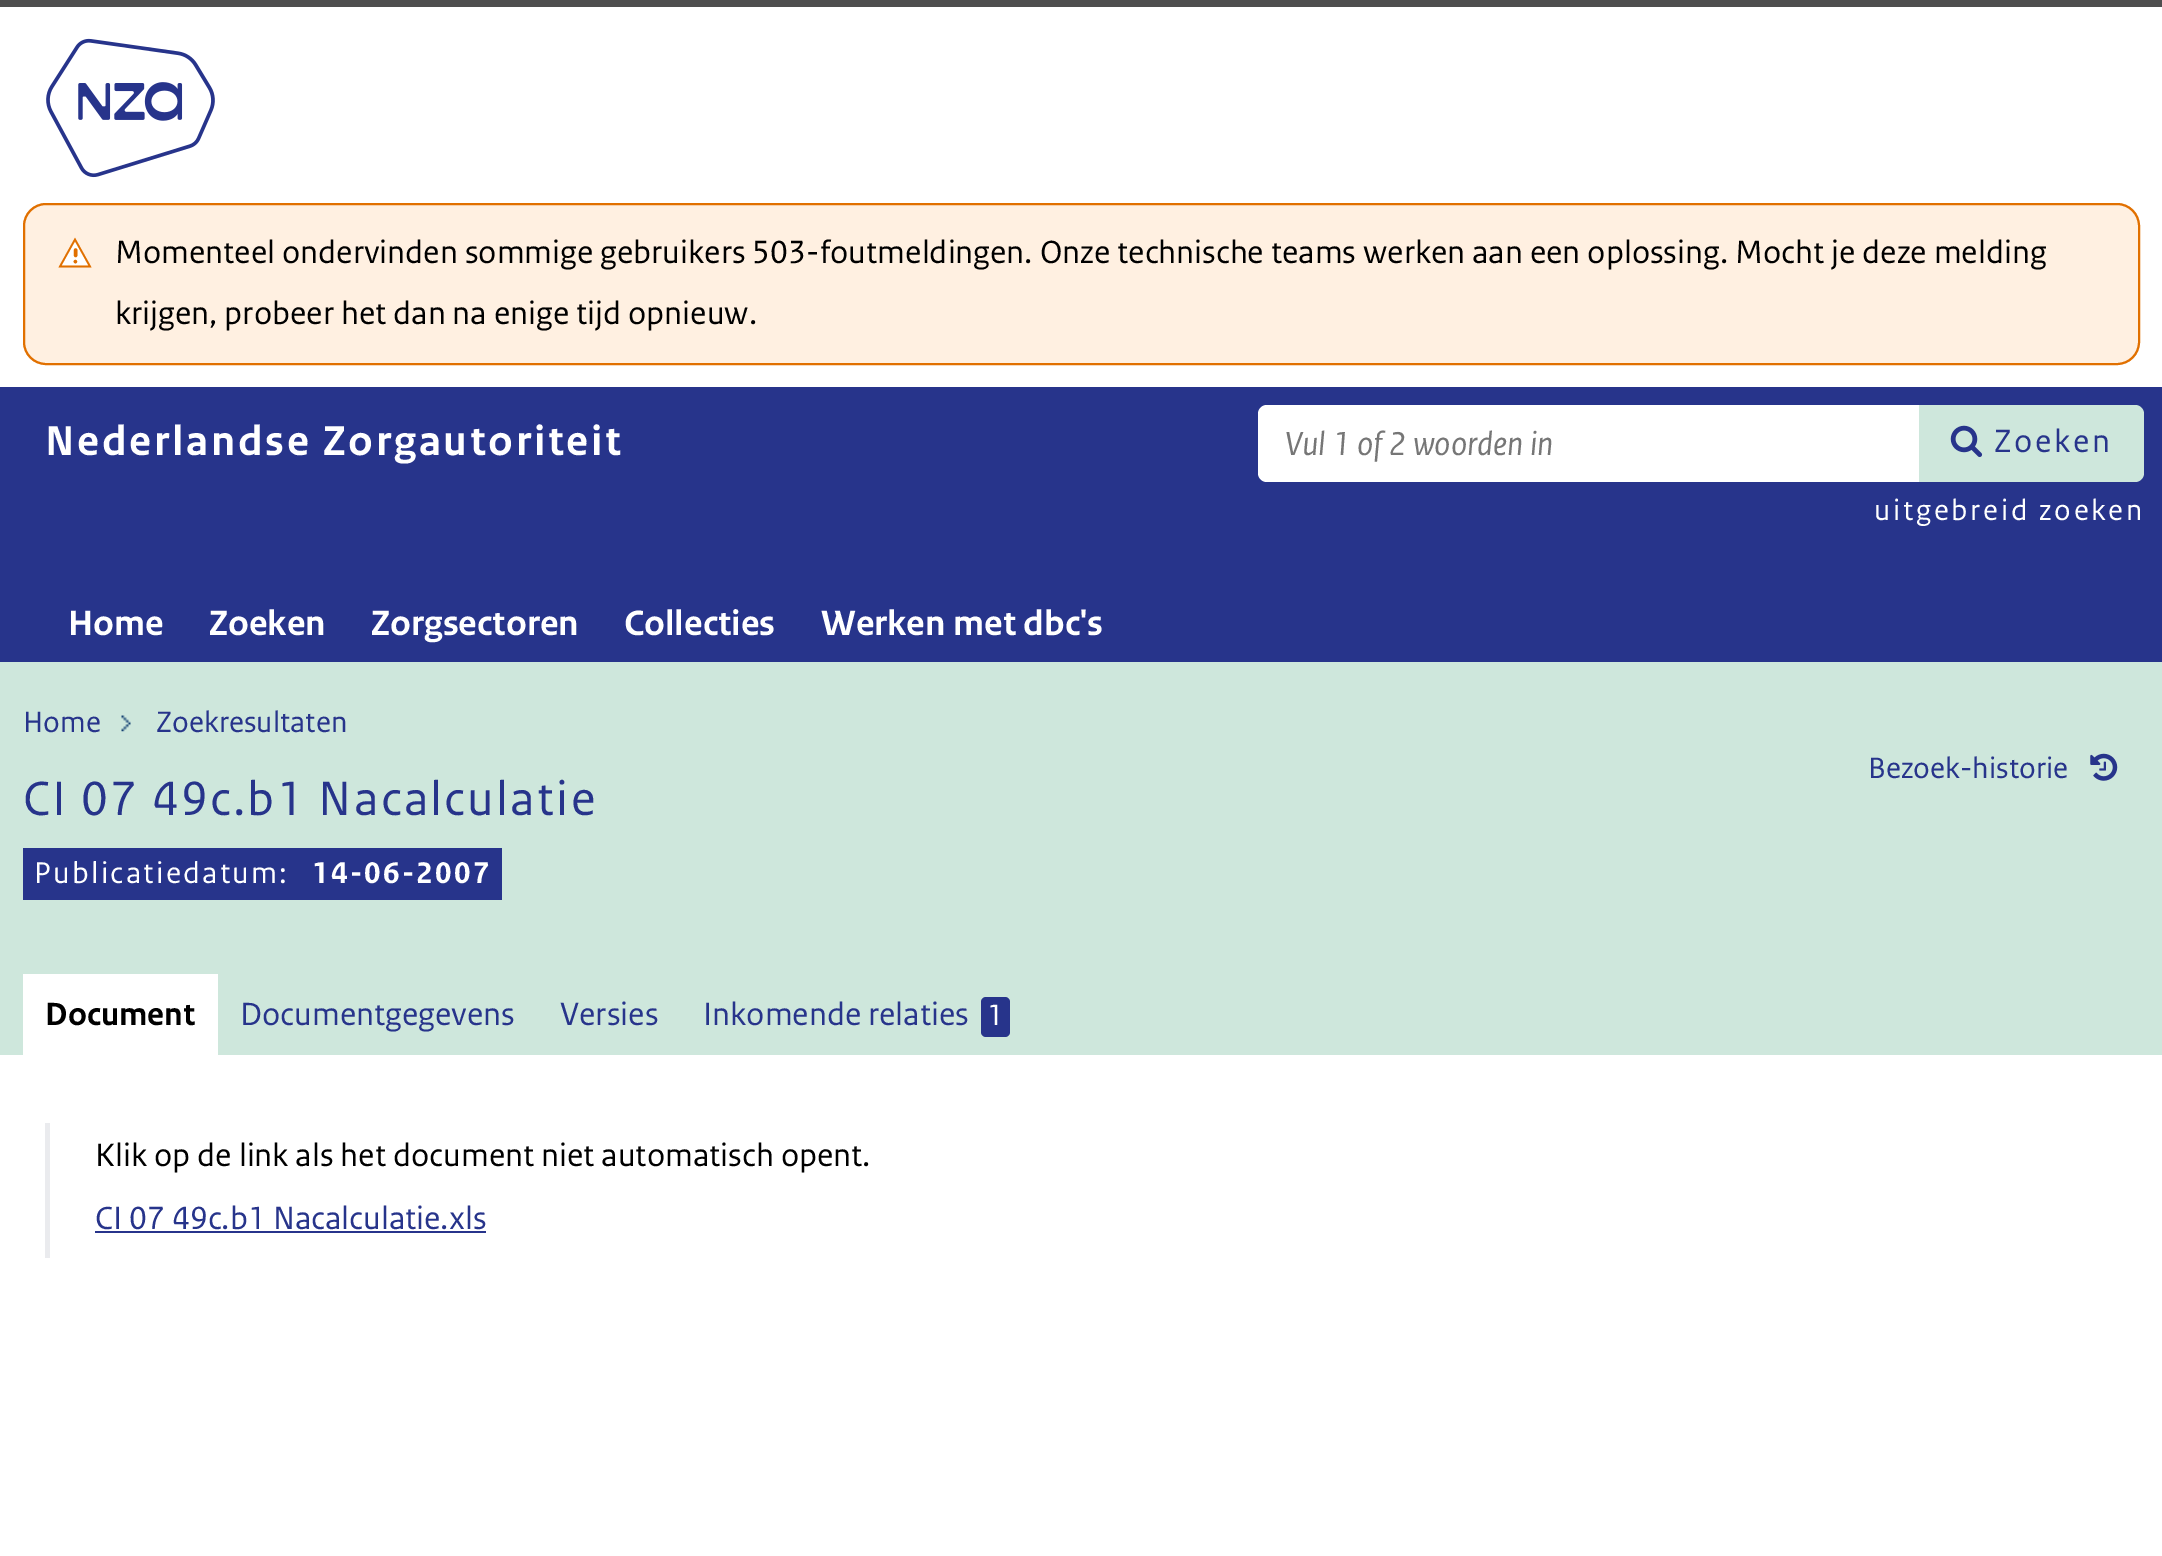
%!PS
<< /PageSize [2162 1556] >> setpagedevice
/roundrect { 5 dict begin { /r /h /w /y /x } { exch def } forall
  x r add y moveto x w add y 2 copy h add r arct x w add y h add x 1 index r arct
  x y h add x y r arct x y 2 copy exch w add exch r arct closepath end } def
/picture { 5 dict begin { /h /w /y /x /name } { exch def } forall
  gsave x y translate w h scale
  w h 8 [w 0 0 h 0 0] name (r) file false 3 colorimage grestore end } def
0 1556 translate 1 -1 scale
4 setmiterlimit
0.306 setgray
0 0 2162 1556 rectfill
1 setgray
0 7 2162 1549 rectfill
(img1.rgb) 46 38 169 140 picture
1 0.941 0.882 setrgbcolor
23 203 2117 162 23 roundrect fill
1 setgray
newpath 75 239.5 moveto 90 266.5 lineto 60 266.5 lineto closepath gsave fill grestore
0.882 0.439 0 setrgbcolor
1.7 setlinewidth
stroke
3.4 setlinewidth
1 setlinecap
newpath 75.5 250 moveto 75.5 255.5 lineto stroke
newpath 75.4 261.6 1.7 0 360 arc closepath fill
2 setlinewidth
0 setlinecap
24 204 2115 160 22 roundrect stroke
/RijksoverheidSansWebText-Regular [33.75 0 0 -33.75 0 0] selectfont
0 setgray
115 263 moveto (Momenteel ondervinden sommige gebruikers 503-foutmeldingen. Onze technische teams werken aan een oplossing. Mocht je deze melding) show
115 324 moveto (krijgen, probeer het dan na enige tijd opnieuw.) show
0.153 0.204 0.545 setrgbcolor
0 387 2162 275 rectfill
/RijksoverheidSansWebText-Bold [43.9 0 0 -43.9 0 0] selectfont
1 setgray
45 455 moveto 2.7 0 (Nederlandse Zorgautoriteit) ashow
newpath 1267 405 moveto 1919 405 lineto 1919 482 lineto 1267 482 lineto 1262 482 1258 478 1258 473 curveto 1258 414 lineto 1258 409 1262 405 1267 405 curveto closepath fill
/RijksoverheidSansWebText-Italic [35 0 0 -35 0 0] selectfont
0.463 setgray
1285 455 moveto (Vul 1 of 2 woorden in) show
0.808 0.906 0.863 setrgbcolor
newpath 1919 405 moveto 2135 405 lineto 2140 405 2144 409 2144 414 curveto 2144 473 lineto 2144 478 2140 482 2135 482 curveto 1919 482 lineto closepath fill
(img2.rgb) 1950 425 33 33 picture
/RijksoverheidSansWebText-Regular [33.75 0 0 -33.75 0 0] selectfont
0.153 0.204 0.545 setrgbcolor
1994 452 moveto 2.7 0 (Zoeken) ashow
/RijksoverheidSansWebText-Regular [30.75 0 0 -30.75 0 0] selectfont
1 setgray
1874 520 moveto 2.7 0 (uitgebreid zoeken) ashow
/RijksoverheidSansWebText-Bold [37 0 0 -37 0 0] selectfont
68 635 moveto (Home) show
209 635 moveto (Zoeken) show
371 635 moveto (Zorgsectoren) show
624 635 moveto (Collecties) show
821 635 moveto (Werken met dbc's) show
0.808 0.906 0.863 setrgbcolor
0 662 2162 393 rectfill
/RijksoverheidSansWebText-Regular [31 0 0 -31 0 0] selectfont
0.153 0.204 0.545 setrgbcolor
23 732 moveto (Home) show
(img3.rgb) 121 715 10 17 picture
156 732 moveto (Zoekresultaten) show
1868 778 moveto (Bezoek-historie) show
(img4.rgb) 2090 753 28 28 picture
/RijksoverheidSansWebText-Regular [50.6 0 0 -50.6 0 0] selectfont
23 815 moveto 2.25 0 (CI 07 49c.b1 Nacalculatie) ashow
23 848 479 52 rectfill
/RijksoverheidSansWebText-Regular [31.5 0 0 -31.5 0 0] selectfont
1 setgray
34 883 moveto 2.25 0 (Publicatiedatum:) ashow
/RijksoverheidSansWebText-Bold [31.5 0 0 -31.5 0 0] selectfont
312 883 moveto 2.25 0 (14-06-2007) ashow
23 974 195 81 rectfill
/RijksoverheidSansWebText-Bold [33.75 0 0 -33.75 0 0] selectfont
0 setgray
45 1025 moveto (Document) show
/RijksoverheidSansWebText-Regular [33.75 0 0 -33.75 0 0] selectfont
0.153 0.204 0.545 setrgbcolor
240 1025 moveto (Documentgegevens) show
560 1025 moveto (Versies) show
703 1025 moveto (Inkomende relaties) show
981 997 29 40 5 roundrect fill
/RijksoverheidSansWebText-Regular [31 0 0 -31 0 0] selectfont
1 setgray
987 1025 moveto (1) show
0.918 0.922 0.933 setrgbcolor
45 1123 5 135 rectfill
/RijksoverheidSansWebText-Regular [33.75 0 0 -33.75 0 0] selectfont
0 setgray
95 1166 moveto (Klik op de link als het document niet automatisch opent.) show
0.153 0.204 0.545 setrgbcolor
95 1229 moveto (CI 07 49c.b1 Nacalculatie.xls) show
95 1231 391 2 rectfill
showpage
